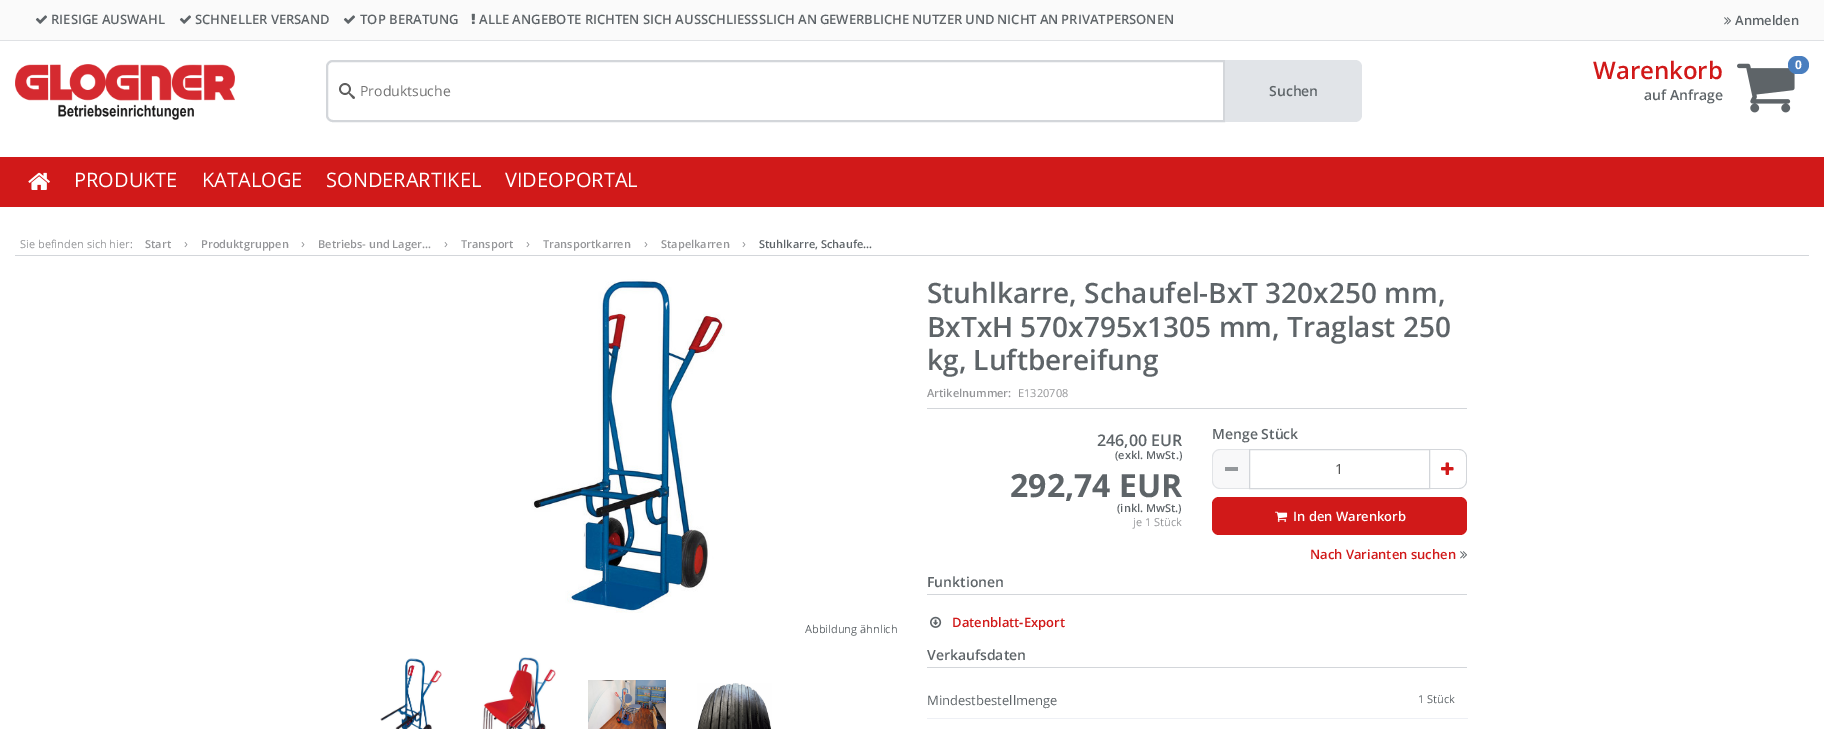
%!PS
<< /PageSize [1824 729] >> setpagedevice
/roundrect { 5 dict begin { /r /h /w /y /x } { exch def } forall
  x r add y moveto x w add y 2 copy h add r arct x w add y h add x 1 index r arct
  x y h add x y r arct x y 2 copy exch w add exch r arct closepath end } def
/picture { 5 dict begin { /h /w /y /x /name } { exch def } forall
  gsave x y translate w h scale
  w h 8 [w 0 0 h 0 0] name (r) file false 3 colorimage grestore end } def
0 729 translate 1 -1 scale
4 setmiterlimit
1 setgray
0 0 1824 729 rectfill
0.98 setgray
0 0 1824 40 rectfill
0.875 0.882 0.894 setrgbcolor
0 40 1824 1 rectfill
(img1.rgb) 35 15 12 9 picture
/OpenSans-SemiBold [13 0 0 -13 0 0] selectfont
0.369 0.392 0.408 setrgbcolor
51 24 moveto (RIESIGE AUSWAHL) show
(img1.rgb) 179 15 12 9 picture
195 24 moveto (SCHNELLER VERSAND) show
(img1.rgb) 343 15 12 9 picture
360 24 moveto (TOP BERATUNG) show
(img2.rgb) 471 13 4 11 picture
479 24 moveto (ALLE ANGEBOTE RICHTEN SICH AUSSCHLIESS) show
759 24 moveto -0.5 0 32 (SLICH AN GEWERBLICHE NUTZER UND NICHT AN PRIVATPERSONEN) widthshow
(img3.rgb) 1724 17 7 8 picture
1735 25 moveto (Anmelden) show
(img4.rgb) 15 64 220 56 picture
(img5.rgb) 339 83 16 16 picture
0.827 0.839 0.855 setrgbcolor
2 setlinewidth
newpath 333 61 moveto 1224 61 lineto 1224 121 lineto 333 121 lineto 329.5 121 327 118.5 327 115 curveto 327 67 lineto 327 63.5 329.5 61 333 61 curveto closepath stroke
/OpenSans-Regular [14 0 0 -14 0 0] selectfont
0.459 setgray
360 96 moveto (Produktsuche) show
0.882 0.894 0.91 setrgbcolor
newpath 1225 60 moveto 1355 60 lineto 1359 60 1362 63 1362 67 curveto 1362 115 lineto 1362 119 1359 122 1355 122 curveto 1225 122 lineto closepath fill
/OpenSans-SemiBold [14 0 0 -14 0 0] selectfont
0.369 0.392 0.408 setrgbcolor
1269 96 moveto (Suchen) show
/OpenSans-SemiBold [24 0 0 -24 0 0] selectfont
0.82 0.098 0.098 setrgbcolor
1593 79 moveto (Warenkorb) show
/OpenSans-SemiBold [14 0 0 -14 0 0] selectfont
0.369 0.392 0.408 setrgbcolor
1644 100 moveto (auf Anfrage) show
(img6.rgb) 1737 63 58 50 picture
0.286 0.494 0.749 setrgbcolor
1788 56 21 18 9 roundrect fill
/OpenSans-Bold [12 0 0 -12 0 0] selectfont
1 setgray
1795 69 moveto (0) show
0.82 0.098 0.098 setrgbcolor
0 157 1824 50 rectfill
(img7.rgb) 28 172 22 18 picture
/OpenSans-Regular [20 0 0 -20 0 0] selectfont
1 setgray
74 187 moveto (PRODUKTE) show
202 187 moveto (KATALOGE) show
326 187 moveto (SONDERARTIKEL) show
505 187 moveto (VIDEOPORTAL) show
0.827 0.839 0.855 setrgbcolor
15 255 1794 1 rectfill
/OpenSans-Regular [11 0 0 -11 0 0] selectfont
0.58 0.584 0.596 setrgbcolor
20 248 moveto (Sie befinden sich hier:) show
/OpenSans-SemiBold [11 0 0 -11 0 0] selectfont
145 248 moveto (Start) show
/OpenSans-Regular [13 0 0 -13 0 0] selectfont
184 248 moveto (›) show
/OpenSans-SemiBold [11 0 0 -11 0 0] selectfont
201 248 moveto (Produktgruppen) show
/OpenSans-Regular [13 0 0 -13 0 0] selectfont
301 248 moveto (›) show
/OpenSans-SemiBold [11 0 0 -11 0 0] selectfont
318 248 moveto (Betriebs- und Lager…) show
/OpenSans-Regular [13 0 0 -13 0 0] selectfont
444 248 moveto (›) show
/OpenSans-SemiBold [11 0 0 -11 0 0] selectfont
461 248 moveto (Transport) show
/OpenSans-Regular [13 0 0 -13 0 0] selectfont
526 248 moveto (›) show
/OpenSans-SemiBold [11 0 0 -11 0 0] selectfont
543 248 moveto (Transportkarren) show
/OpenSans-Regular [13 0 0 -13 0 0] selectfont
644 248 moveto (›) show
/OpenSans-SemiBold [11 0 0 -11 0 0] selectfont
661 248 moveto (Stapelkarren) show
/OpenSans-Regular [13 0 0 -13 0 0] selectfont
742 248 moveto (›) show
/OpenSans-SemiBold [11 0 0 -11 0 0] selectfont
0.369 0.392 0.408 setrgbcolor
759 248 moveto (Stuhlkarre, Schaufe…) show
(img8.rgb) 531 279 194 334 picture
/OpenSans-Regular [11 0 0 -11 0 0] selectfont
805 633 moveto (Abbildung ähnlich) show
(img9.rgb) 380 658 62 71 picture
(img10.rgb) 482 657 74 72 picture
(img11.rgb) 588 680 78 49 picture
(img12.rgb) 697 683 75 46 picture
0.827 0.839 0.855 setrgbcolor
927 408 540 1 rectfill
/OpenSans-SemiBold [28 0 0 -28 0 0] selectfont
0.369 0.392 0.408 setrgbcolor
927 303 moveto (Stuhlkarre, Schaufel-BxT 320x250 mm,) show
927 337 moveto (BxTxH 570x795x1305 mm, Traglast 250) show
927 370 moveto (kg, Luftbereifung) show
/OpenSans-SemiBold [11 0 0 -11 0 0] selectfont
0.58 0.584 0.596 setrgbcolor
927 397 moveto (Artikelnummer:) show
/OpenSans-Regular [11 0 0 -11 0 0] selectfont
1018 397 moveto (E1320708) show
/OpenSans-SemiBold [16 0 0 -16 0 0] selectfont
0.369 0.392 0.408 setrgbcolor
1097 446 moveto (246,00 EUR) show
/OpenSans-SemiBold [11 0 0 -11 0 0] selectfont
1115 459 moveto (\(exkl. MwSt.\)) show
/OpenSans-Bold [32 0 0 -32 0 0] selectfont
1010 497 moveto (292,74 EUR) show
/OpenSans-SemiBold [11 0 0 -11 0 0] selectfont
1117 512 moveto (\(inkl. MwSt.\)) show
/OpenSans-Regular [11 0 0 -11 0 0] selectfont
0.58 0.584 0.596 setrgbcolor
1133 526 moveto (je 1 Stück) show
/OpenSans-SemiBold [14 0 0 -14 0 0] selectfont
0.369 0.392 0.408 setrgbcolor
1212 439 moveto (Menge Stück) show
0.973 0.973 0.976 setrgbcolor
newpath 1220 449 moveto 1250 449 lineto 1250 489 lineto 1220 489 lineto 1215.5 489 1212 485.5 1212 481 curveto 1212 457 lineto 1212 452.5 1215.5 449 1220 449 curveto closepath fill
0.886 0.894 0.906 setrgbcolor
newpath 1220 449 moveto 1250 449 lineto 1250 489 lineto 1220 489 lineto 1216 489 1212 485 1212 481 curveto 1212 457 lineto 1212 453 1216 449 1220 449 curveto closepath 1220 450 moveto 1250 450 lineto 1250 488 lineto 1220 488 lineto 1216 488 1213 485 1213 481 curveto 1213 457 lineto 1213 453 1216 450 1220 450 curveto closepath eofill
0.58 0.596 0.608 setrgbcolor
1225 467 13 4 rectfill
0.827 0.839 0.855 setrgbcolor
1 setlinewidth
1249.5 449.5 180 39 rectstroke
/OpenSans-Regular [14 0 0 -14 0 0] selectfont
0.333 setgray
1335 474 moveto (1) show
0.827 0.839 0.855 setrgbcolor
newpath 1429 449 moveto 1459 449 lineto 1463 449 1467 453 1467 457 curveto 1467 481 lineto 1467 485 1463 489 1459 489 curveto 1429 489 lineto closepath 1429 450 moveto 1459 450 lineto 1463 450 1466 453 1466 457 curveto 1466 481 lineto 1466 485 1463 488 1459 488 curveto 1429 488 lineto closepath eofill
(img13.rgb) 1441 462 13 13 picture
0.82 0.098 0.098 setrgbcolor
1212 497 255 38 7 roundrect fill
(img14.rgb) 1275 511 13 11 picture
/OpenSans-SemiBold [13 0 0 -13 0 0] selectfont
1 setgray
1293 521 moveto (In den Warenkorb) show
0.82 0.098 0.098 setrgbcolor
1310 559 moveto (Nach Varianten suchen) show
(img15.rgb) 1460 551 7 8 picture
0.827 0.839 0.855 setrgbcolor
927 594 540 1 rectfill
/OpenSans-SemiBold [14 0 0 -14 0 0] selectfont
0.369 0.392 0.408 setrgbcolor
927 587 moveto (Funktionen) show
(img16.rgb) 930 616 12 12 picture
/OpenSans-SemiBold [13 0 0 -13 0 0] selectfont
0.82 0.098 0.098 setrgbcolor
952 627 moveto (Datenblatt-Export) show
0.827 0.839 0.855 setrgbcolor
927 667 540 1 rectfill
/OpenSans-SemiBold [14 0 0 -14 0 0] selectfont
0.369 0.392 0.408 setrgbcolor
927 660 moveto (Verkaufsdaten) show
/OpenSans-Regular [13 0 0 -13 0 0] selectfont
927 705 moveto (Mindestbestellmenge) show
0.933 0.941 0.961 setrgbcolor
927 718 541 1 rectfill
/OpenSans-Regular [11 0 0 -11 0 0] selectfont
0.369 0.392 0.408 setrgbcolor
1418 703 moveto (1 Stück) show
showpage
